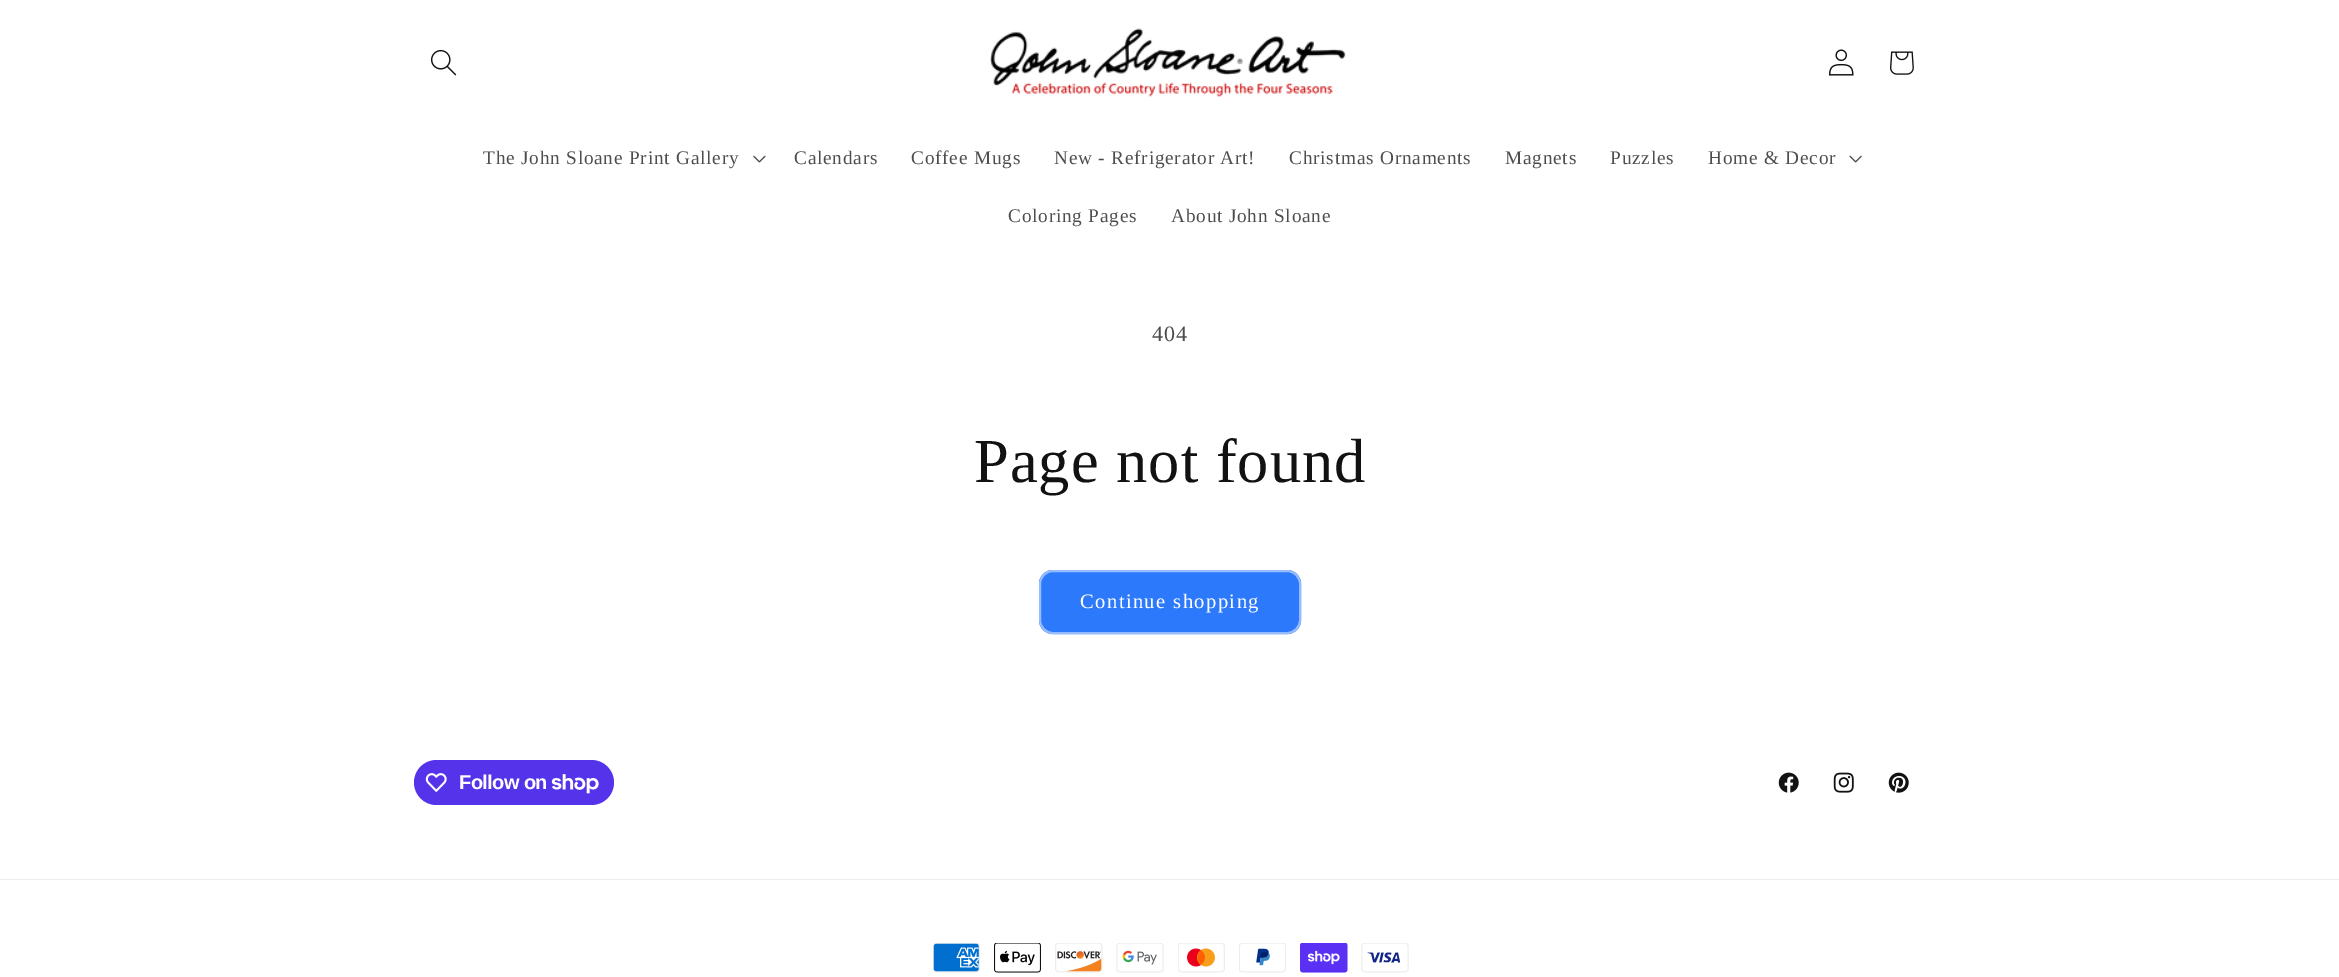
%!PS
<< /PageSize [2339 977] /PageUsesTransparency true >> setpagedevice
/alpha { dup .setfillconstantalpha .setstrokeconstantalpha } def
/roundrect { 5 dict begin { /r /h /w /y /x } { exch def } forall
  x r add y moveto x w add y 2 copy h add r arct x w add y h add x 1 index r arct
  x y h add x y r arct x y 2 copy exch w add exch r arct closepath end } def
/picture { 5 dict begin { /h /w /y /x /name } { exch def } forall
  gsave x y translate w h scale
  w h 8 [w 0 0 h 0 0] name (r) file false 3 colorimage grestore end } def
0 .pushpdf14devicefilter
0 977 translate 1 -1 scale
4 setmiterlimit
1 setgray
0 0 2339 977 rectfill
(img1.rgb) 430 49 27 27 picture
(img2.rgb) 990 28 356 69 picture
(img3.rgb) 1828 49 26 27 picture
(img4.rgb) 1890 51 24 24 picture
/LiberationSerif-Regular [19.25 0 0 -19.25 0 0] selectfont
0.302 setgray
483 164 moveto 0.8 0 (The John Sloane Print Gallery) ashow
(img5.rgb) 753 155 13 8 picture
794 164 moveto 0.8 0 (Calendars) ashow
911 164 moveto 0.8 0 (Coffee Mugs) ashow
1054 164 moveto 0.8 0 (New - Refrigerator Art!) ashow
1289 164 moveto 0.8 0 (Christmas Ornaments) ashow
1505 164 moveto 0.8 0 (Magnets) ashow
1610 164 moveto 0.8 0 (Puzzles) ashow
1708 164 moveto 0.8 0 (Home & Decor) ashow
(img6.rgb) 1849 155 13 8 picture
1008 222 moveto 0.8 0 (Coloring Pages) ashow
1171 222 moveto 0.8 0 (About John Sloane) ashow
/LiberationSerif-Regular [22 0 0 -22 0 0] selectfont
1152 341 moveto 0.8 0 (404) ashow
/LiberationSerif-Regular [62.5 0 0 -62.5 0 0] selectfont
0.071 setgray
974 482 moveto 1 0 (Page not found) ashow
0.176 0.475 0.988 setrgbcolor
1039 570 262 64 14 roundrect fill
1039.5 570.5 261 63 13.5 roundrect stroke
0.5 alpha
1 setgray
2 setlinewidth
1040 571 260 62 13 roundrect stroke
/LiberationSerif-Regular [20.6 0 0 -20.6 0 0] selectfont
1 alpha
1080 608 moveto 1.4 0 (Continue shopping) ashow
0.329 0.2 0.922 setrgbcolor
414 760 200 45 22.5 roundrect fill
(img7.rgb) 425 773 22 19 picture
/LiberationSans-Bold [20 0 0 -20 0 0] selectfont
1 setgray
459 789 moveto -0.6 0 (Follow on) ashow
(img8.rgb) 551 774 48 20 picture
(img9.rgb) 1778 772 21 21 picture
(img10.rgb) 1833 772 21 21 picture
(img11.rgb) 1888 772 21 21 picture
0.925 setgray
0 879 2339 1 rectfill
(img12.rgb) 933 943 47 30 picture
(img13.rgb) 994 943 47 30 picture
(img14.rgb) 1055 943 48 30 picture
(img15.rgb) 1116 943 48 30 picture
(img16.rgb) 1178 943 47 30 picture
(img17.rgb) 1239 943 47 30 picture
(img18.rgb) 1300 943 48 30 picture
(img19.rgb) 1361 943 48 30 picture
.poppdf14devicefilter showpage
